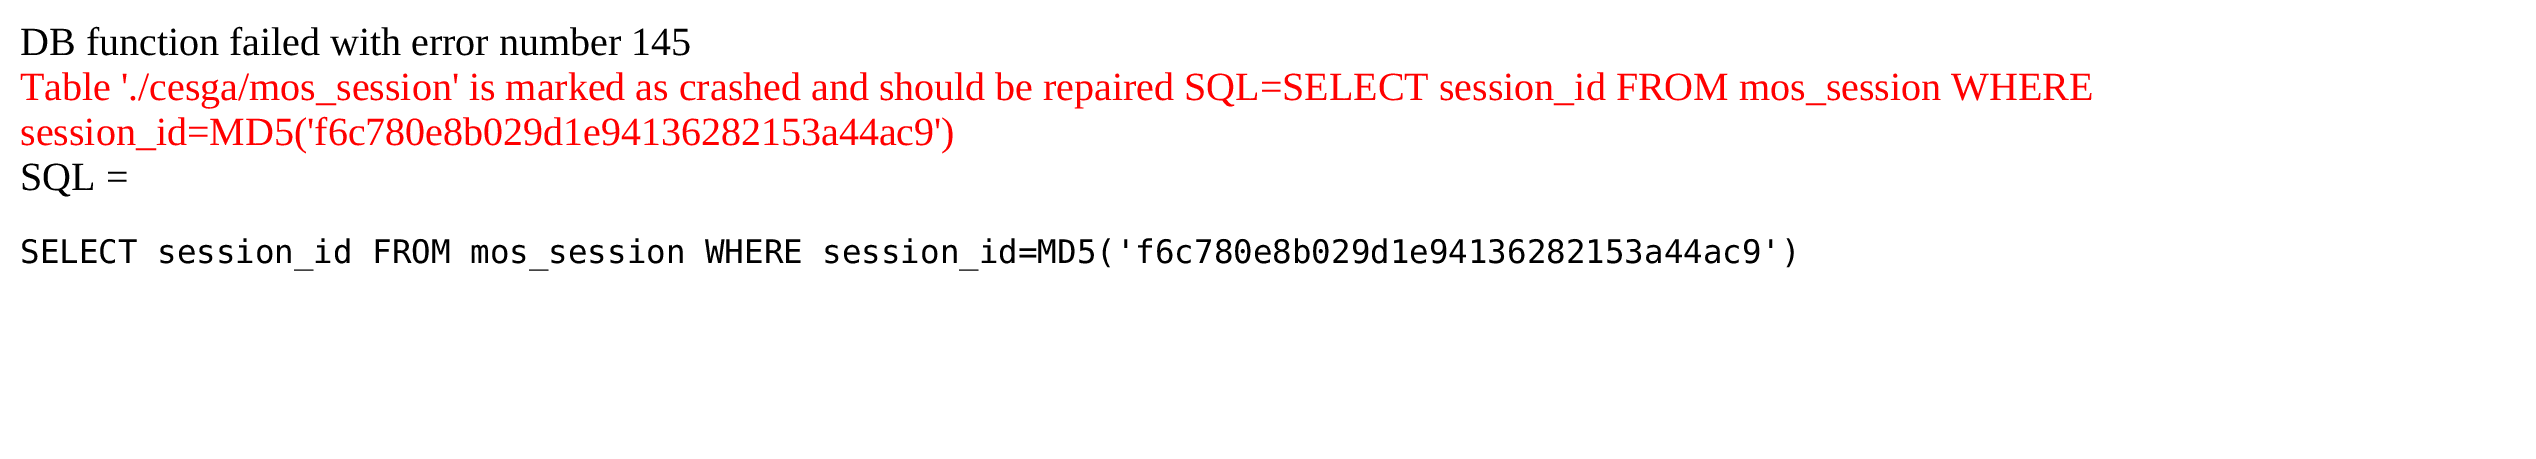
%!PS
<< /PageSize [2536 459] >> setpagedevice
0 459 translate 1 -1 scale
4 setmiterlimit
1 setgray
0 0 2536 459 rectfill
/LiberationSerif-Regular [40 0 0 -40 0 0] selectfont
0 setgray
20 55 moveto (DB function failed with error number 145) show
1 0 0 setrgbcolor
20 100 moveto (Table './cesga/mos_session' is marked as crashed and should be repaired SQL=SELECT session_id FROM mos_session WHERE) show
20 145 moveto (session_id=MD5\('f6c780e8b029d1e94136282153a44ac9'\)) show
0 setgray
20 190 moveto (SQL =) show
/DejaVuSansMono-Regular [32.5 0 0 -32.5 0 0] selectfont
20 263 moveto (SELECT session_id FROM mos_session WHERE session_id=MD5\('f6c780e8b029d1e94136282153a44ac9'\)) show
showpage
